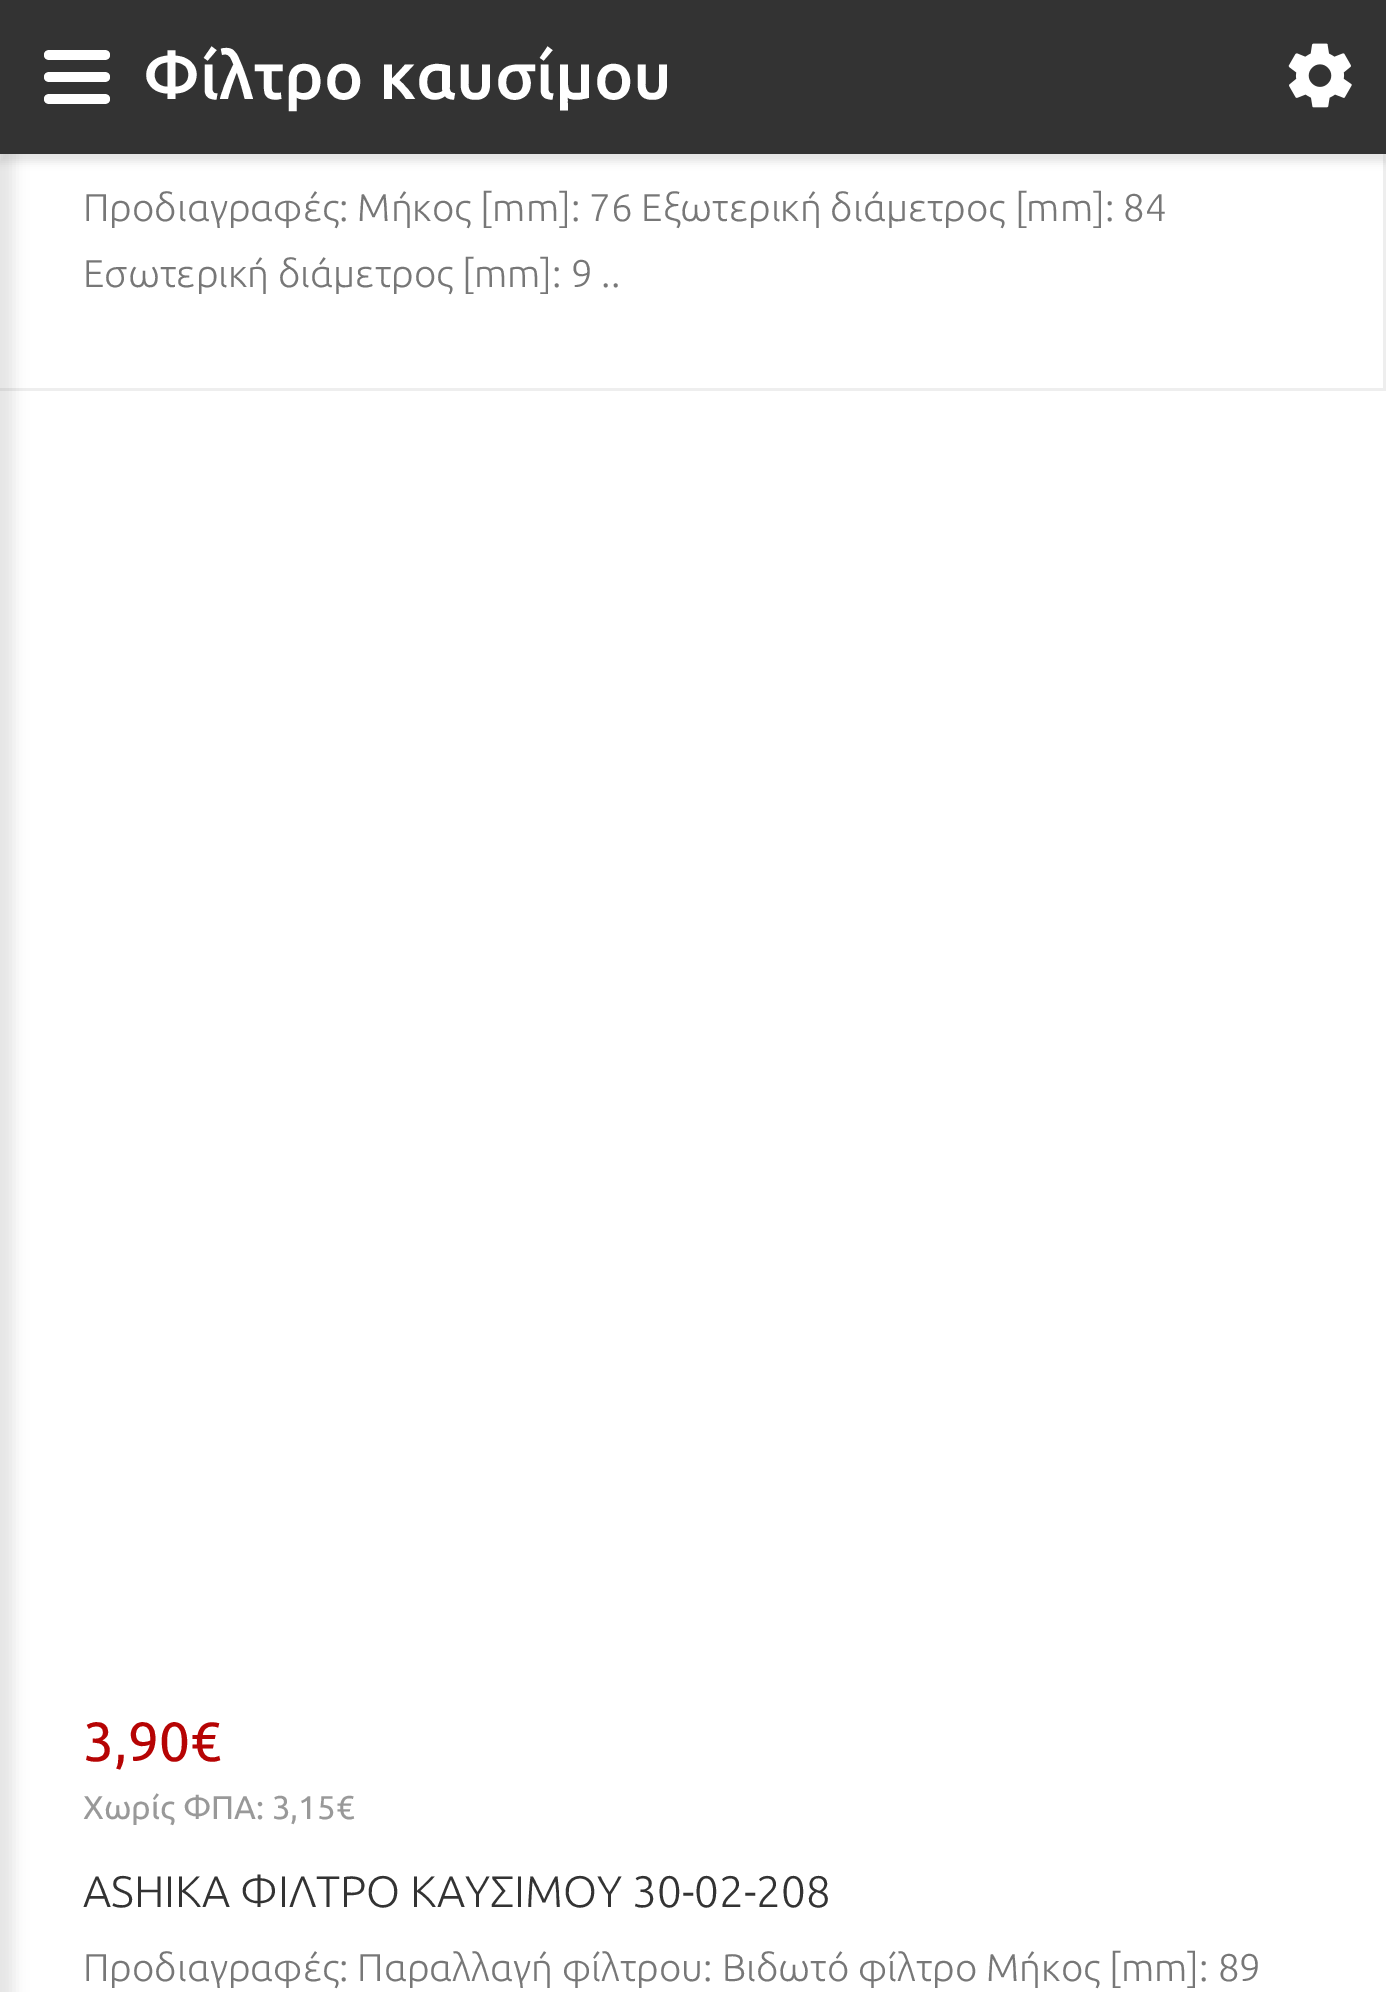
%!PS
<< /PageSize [1386 1992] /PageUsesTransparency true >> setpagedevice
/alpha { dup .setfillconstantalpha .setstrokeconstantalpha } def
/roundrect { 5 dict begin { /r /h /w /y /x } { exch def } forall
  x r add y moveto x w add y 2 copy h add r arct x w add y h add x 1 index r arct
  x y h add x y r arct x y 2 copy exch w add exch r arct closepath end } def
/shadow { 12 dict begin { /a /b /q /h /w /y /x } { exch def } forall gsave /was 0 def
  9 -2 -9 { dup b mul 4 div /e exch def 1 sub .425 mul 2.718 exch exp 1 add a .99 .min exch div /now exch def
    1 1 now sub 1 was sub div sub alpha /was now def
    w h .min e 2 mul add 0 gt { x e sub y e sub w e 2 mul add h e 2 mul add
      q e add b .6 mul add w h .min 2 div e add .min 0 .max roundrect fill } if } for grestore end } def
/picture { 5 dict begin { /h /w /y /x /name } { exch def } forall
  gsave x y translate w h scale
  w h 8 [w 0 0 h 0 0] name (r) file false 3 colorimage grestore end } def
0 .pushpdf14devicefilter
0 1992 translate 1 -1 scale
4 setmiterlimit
1 setgray
0 0 1386 1992 rectfill
0.933 setgray
1383 154 3 237 rectfill
0 388 1386 3 rectfill
0 setgray
-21 -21 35 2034 0 7 0.1 shadow
0 8 1386 154 0 4 0.1 shadow
0.2 setgray
0 0 1386 154 rectfill
1 setgray
newpath 104 82 moveto 50 82 lineto 46 82 44 80 44 77 curveto 44 74 46 72 50 72 curveto 104 72 lineto 108 72 110 74 110 77 curveto 110 80 108 82 104 82 curveto closepath fill
newpath 104 60 moveto 50 60 lineto 46 60 44 58 44 55 curveto 44 52 46 50 50 50 curveto 104 50 lineto 108 50 110 52 110 55 curveto 110 58 108 60 104 60 curveto closepath fill
newpath 104 104 moveto 50 104 lineto 46 104 44 102 44 99 curveto 44 96 46 94 50 94 curveto 104 94 lineto 108 94 110 96 110 99 curveto 110 102 108 104 104 104 curveto closepath fill
/Ubuntu-Medium [66 0 0 -66 0 0] selectfont
143 99 moveto (Φίλτρο καυσίμου) show
(img1.rgb) 1288 43 64 65 picture
/Ubuntu-Light [38.5 0 0 -38.5 0 0] selectfont
0.467 setgray
83 221 moveto (Προδιαγραφές: Μήκος [mm]: 76 Εξωτερική διάμετρος [mm]: 84) show
83 287 moveto (Εσωτερική διάμετρος [mm]: 9 ..) show
/Ubuntu-Regular [55 0 0 -55 0 0] selectfont
0.714 0.016 0.016 setrgbcolor
83 1761 moveto (3,90€) show
/Ubuntu-Regular [33 0 0 -33 0 0] selectfont
0.6 setgray
83 1819 moveto (Χωρίς ΦΠΑ: 3,15€) show
/Ubuntu-Light [44 0 0 -44 0 0] selectfont
0.2 setgray
83 1907 moveto (ASHIKA ΦΙΛΤΡΟ ΚΑΥΣΙΜΟΥ 30-02-208) show
/Ubuntu-Light [38.5 0 0 -38.5 0 0] selectfont
0.467 setgray
83 1981 moveto (Προδιαγραφές: Παραλλαγή φίλτρου: Βιδωτό φίλτρο Μήκος [mm]: 89) show
.poppdf14devicefilter showpage
